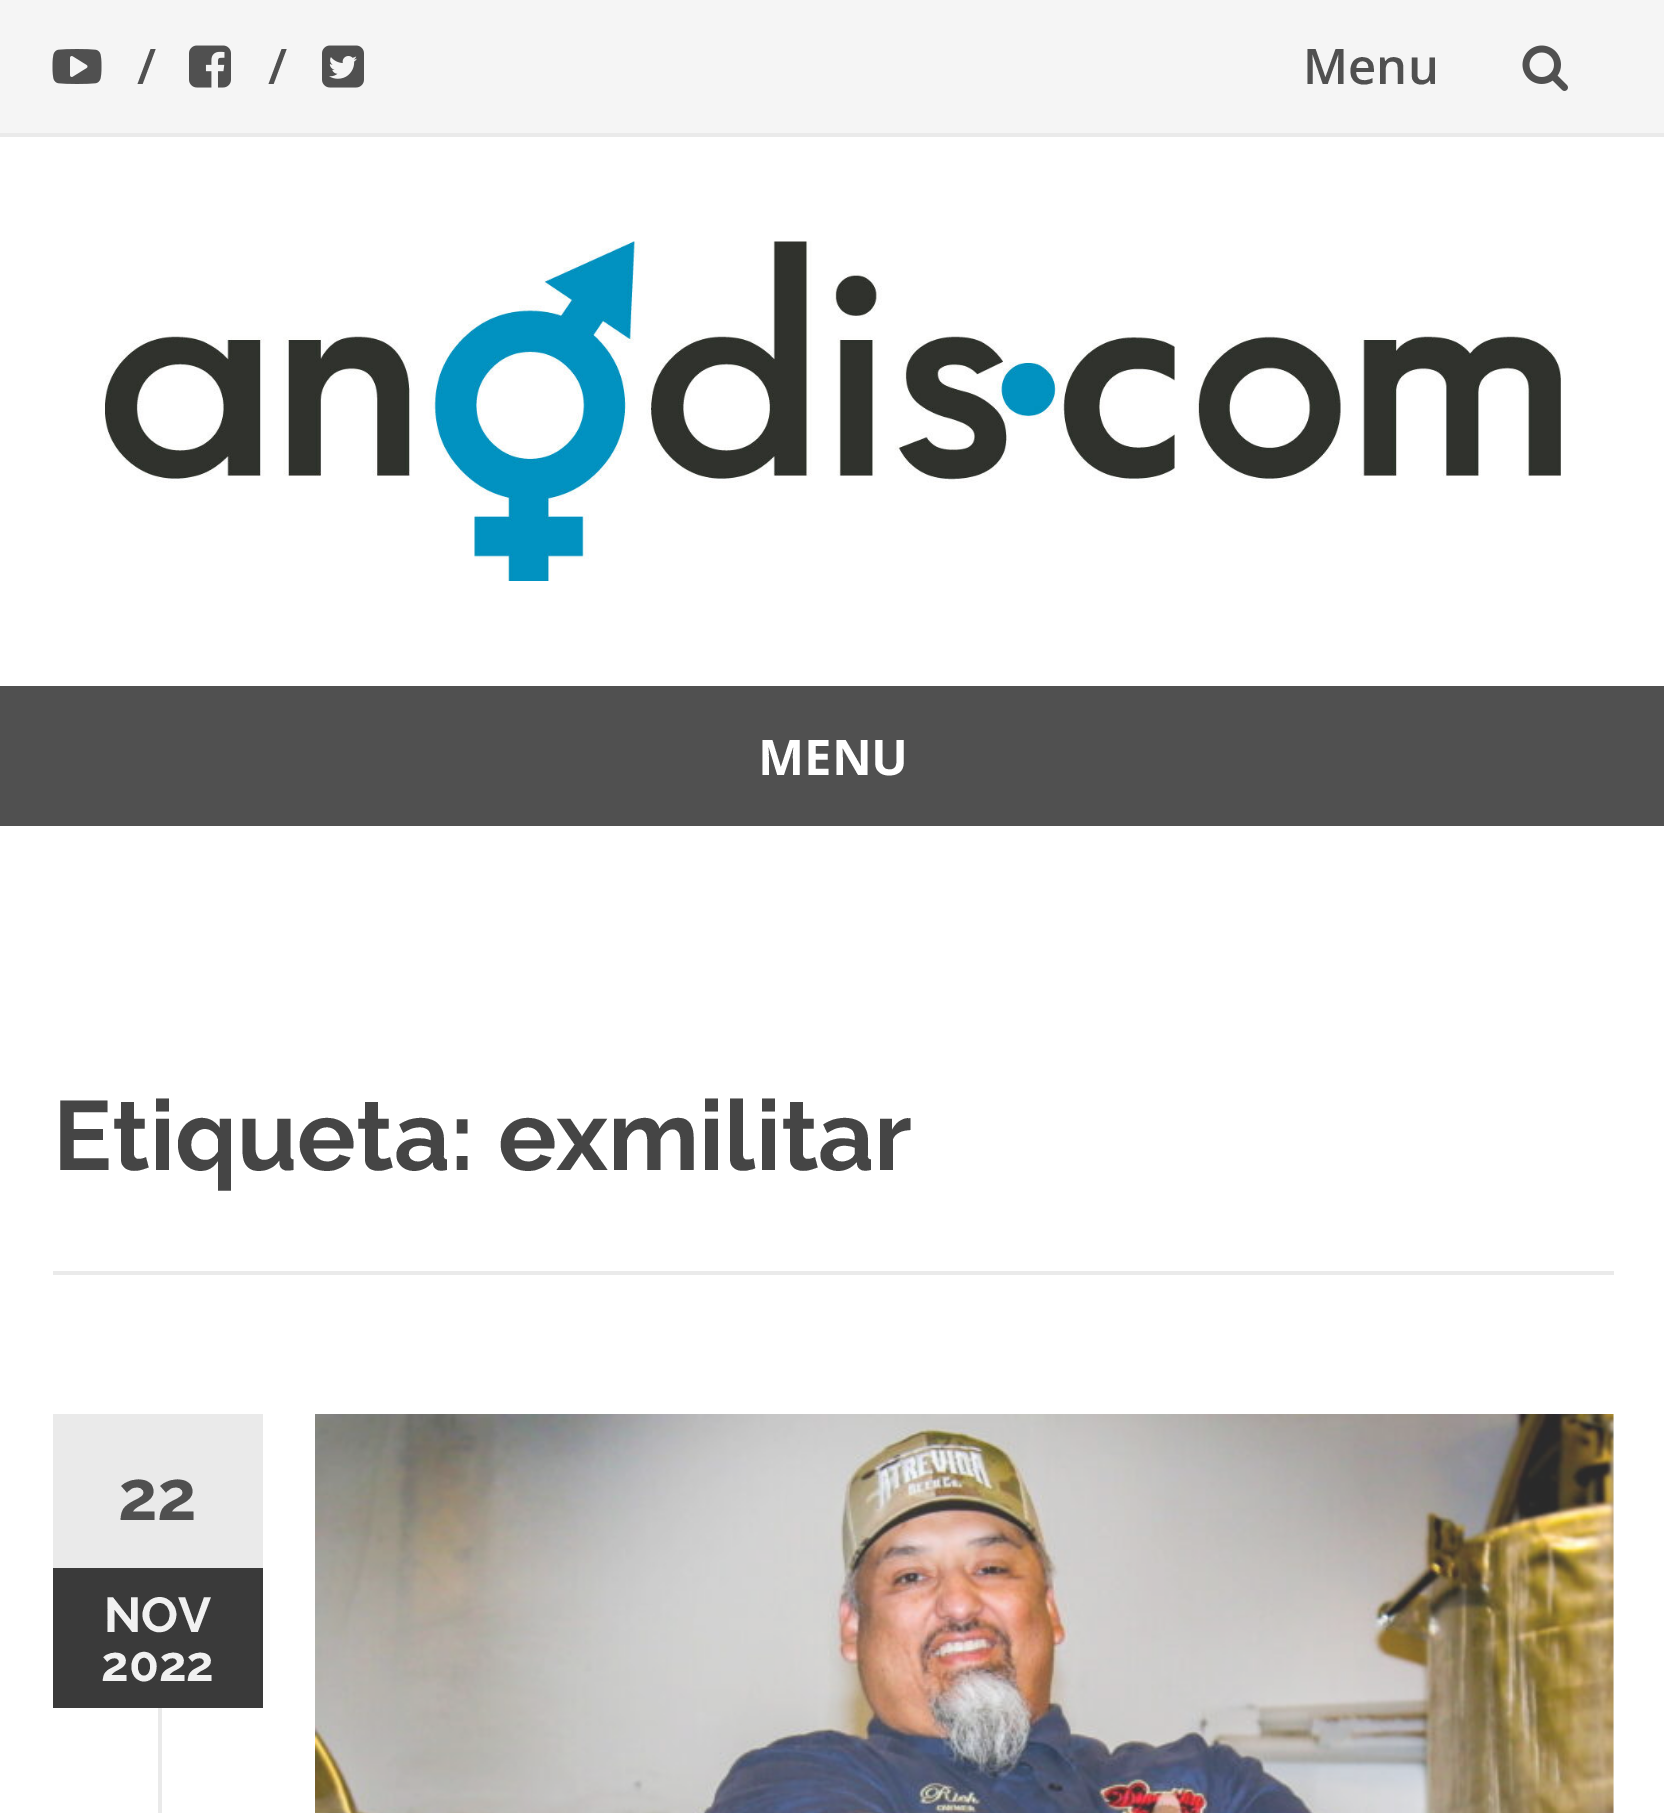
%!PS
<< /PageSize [1664 1813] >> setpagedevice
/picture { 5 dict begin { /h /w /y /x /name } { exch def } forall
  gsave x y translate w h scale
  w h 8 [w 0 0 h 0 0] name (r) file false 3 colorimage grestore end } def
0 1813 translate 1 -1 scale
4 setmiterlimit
1 setgray
0 0 1664 1813 rectfill
0.961 setgray
0 0 1664 133 rectfill
0.918 setgray
0 133 1664 4 rectfill
(img1.rgb) 52 49 50 35 picture
/OpenSans-SemiBold [49 0 0 -49 0 0] selectfont
0.314 setgray
137 84 moveto (/) show
(img2.rgb) 189 45 42 43 picture
268 84 moveto (/) show
(img3.rgb) 322 45 42 43 picture
1303 84 moveto (Menu) show
(img4.rgb) 1522 45 46 46 picture
(img5.rgb) 105 241 1456 340 picture
0 686 1664 140 rectfill
/OpenSans-Bold [49 0 0 -49 0 0] selectfont
1 setgray
758 775 moveto (MENU) show
0.918 setgray
53 1271 1561 4 rectfill
/Raleway-Bold [98 0 0 -98 0 0] selectfont
0.271 setgray
53 1170 moveto (Etiqueta: exmilitar) show
0.918 setgray
53 1414 210 154 rectfill
/Raleway-Bold [70 0 0 -70 0 0] selectfont
0.314 setgray
118 1520 moveto (22) show
0.227 setgray
53 1568 210 140 rectfill
/Raleway-Bold [49 0 0 -49 0 0] selectfont
0.945 setgray
104 1632 moveto (NOV) show
101 1681 moveto (2022) show
0.965 setgray
1613 1414 1 399 rectfill
(img6.rgb) 315 1414 1299 399 picture
0.918 setgray
158 1708 4 105 rectfill
showpage
